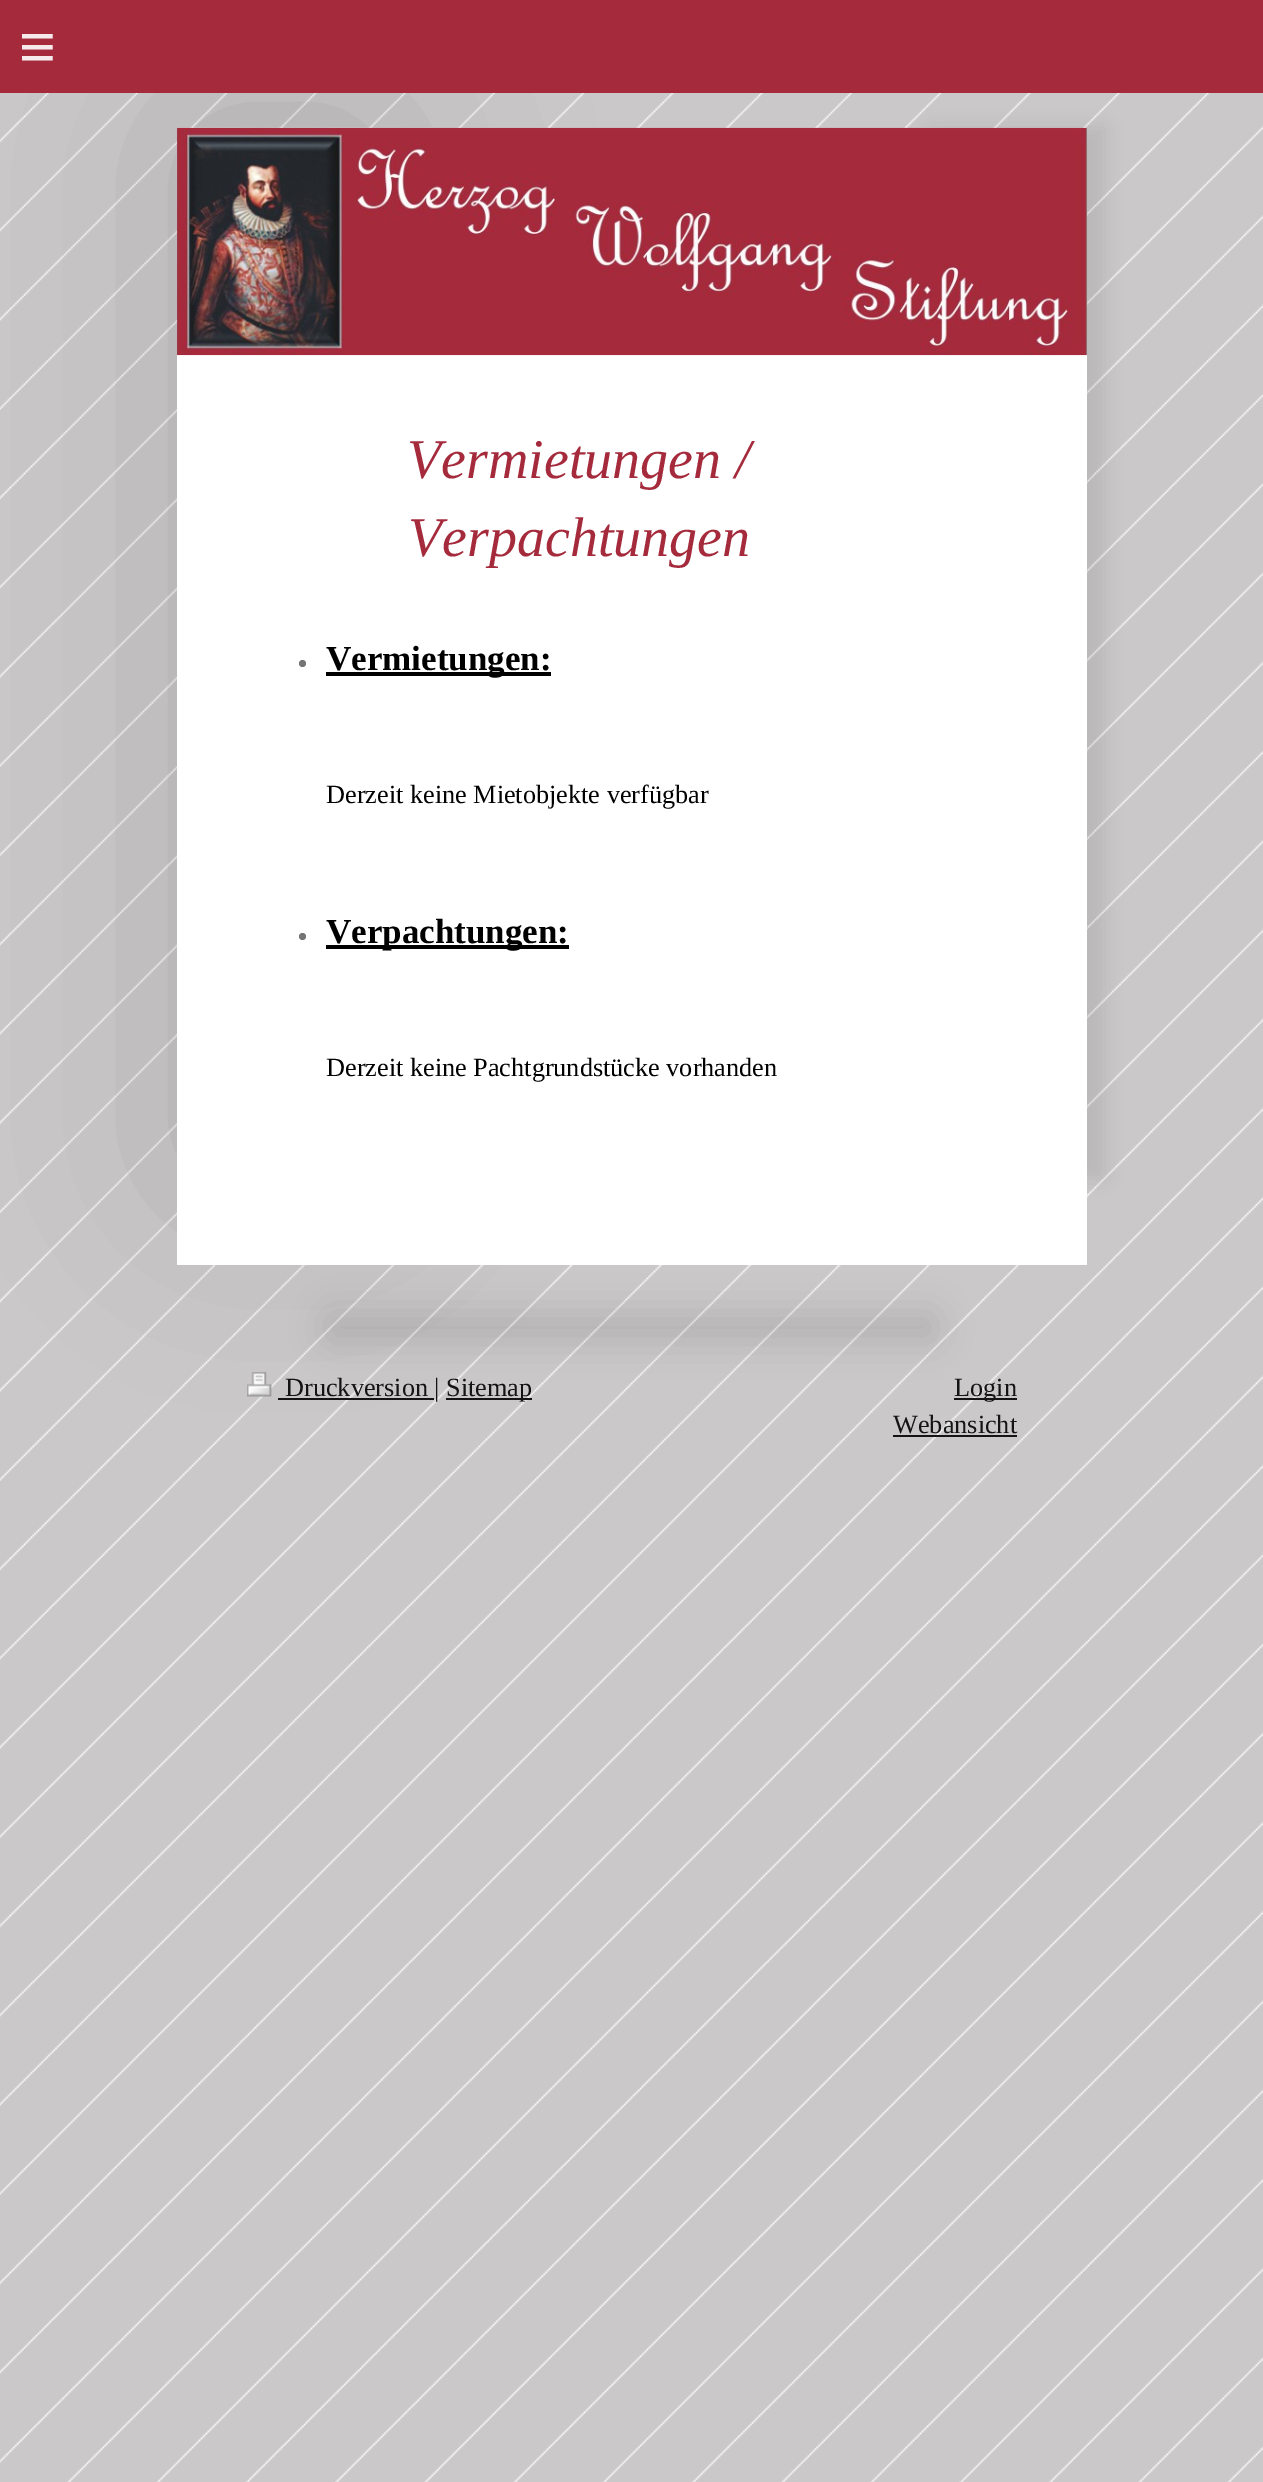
%!PS
<< /PageSize [1263 2482] /PageUsesTransparency true >> setpagedevice
/alpha { dup .setfillconstantalpha .setstrokeconstantalpha } def
/roundrect { 5 dict begin { /r /h /w /y /x } { exch def } forall
  x r add y moveto x w add y 2 copy h add r arct x w add y h add x 1 index r arct
  x y h add x y r arct x y 2 copy exch w add exch r arct closepath end } def
/shadow { 12 dict begin { /a /b /q /h /w /y /x } { exch def } forall gsave /was 0 def
  9 -2 -9 { dup b mul 4 div /e exch def 1 sub .425 mul 2.718 exch exp 1 add a .99 .min exch div /now exch def
    1 1 now sub 1 was sub div sub alpha /was now def
    w h .min e 2 mul add 0 gt { x e sub y e sub w e 2 mul add h e 2 mul add
      q e add b .6 mul add w h .min 2 div e add .min 0 .max roundrect fill } if } for grestore end } def
/picture { 5 dict begin { /h /w /y /x /name } { exch def } forall
  gsave x y translate w h scale
  w h 8 [w 0 0 h 0 0] name (r) file false 3 colorimage grestore end } def
0 .pushpdf14devicefilter
0 2482 translate 1 -1 scale
4 setmiterlimit
0.792 0.784 0.784 setrgbcolor
0 0 1263 2482 rectfill
(img1.rgb) 0 93 1263 2389 picture
0 setgray
194 128 175 1050 0 105 0.15 shadow
0.643 0.165 0.235 setrgbcolor
0 0 1263 93 rectfill
/LiberationSans-Regular [63 0 0 -63 0 0] selectfont
0.965 0.918 0.925 setrgbcolor
19 68 moveto 18 0 (≡) ashow
0 setgray
929 128 175 1050 0 9 0.08 shadow
0.6 setgray
1086 128 1 227 rectfill
1 setgray
177 355 910 875 rectfill
(img2.rgb) 176 127 911 229 picture
/LiberationSerif-Italic [56 0 0 -56 0 0] selectfont
0.643 0.165 0.235 setrgbcolor
407 478 moveto (Vermietungen /) show
408 556 moveto (Verpachtungen) show
0.459 setgray
newpath 302.5 663.5 3.5 0 360 arc closepath fill
0 setgray
326 672 225 4 rectfill
/LiberationSerif-Bold [35 0 0 -35 0 0] selectfont
326 670 moveto (Vermietungen:) show
/LiberationSerif-Regular [26.25 0 0 -26.25 0 0] selectfont
326 803 moveto (Derzeit keine Mietobjekte verfügbar) show
0.459 setgray
newpath 302.5 936.5 3.5 0 360 arc closepath fill
0 setgray
326 945 243 4 rectfill
/LiberationSerif-Bold [35 0 0 -35 0 0] selectfont
326 943 moveto (Verpachtungen:) show
/LiberationSerif-Regular [26.25 0 0 -26.25 0 0] selectfont
326 1076 moveto (Derzeit keine Pachtgrundstücke vorhanden) show
327 1313 609 29 14.5 17.5 0.1 shadow
1 setgray
177 1230 910 35 rectfill
(img3.rgb) 247 1372 25 25 picture
0.078 setgray
278 1398 156 2 rectfill
285 1396 moveto (Druckversion |) show
446 1398 86 2 rectfill
446 1396 moveto (Sitemap) show
954 1398 63 2 rectfill
954 1396 moveto (Login) show
893 1433 moveto (Webansicht) show
893 1435 124 2 rectfill
.poppdf14devicefilter showpage
